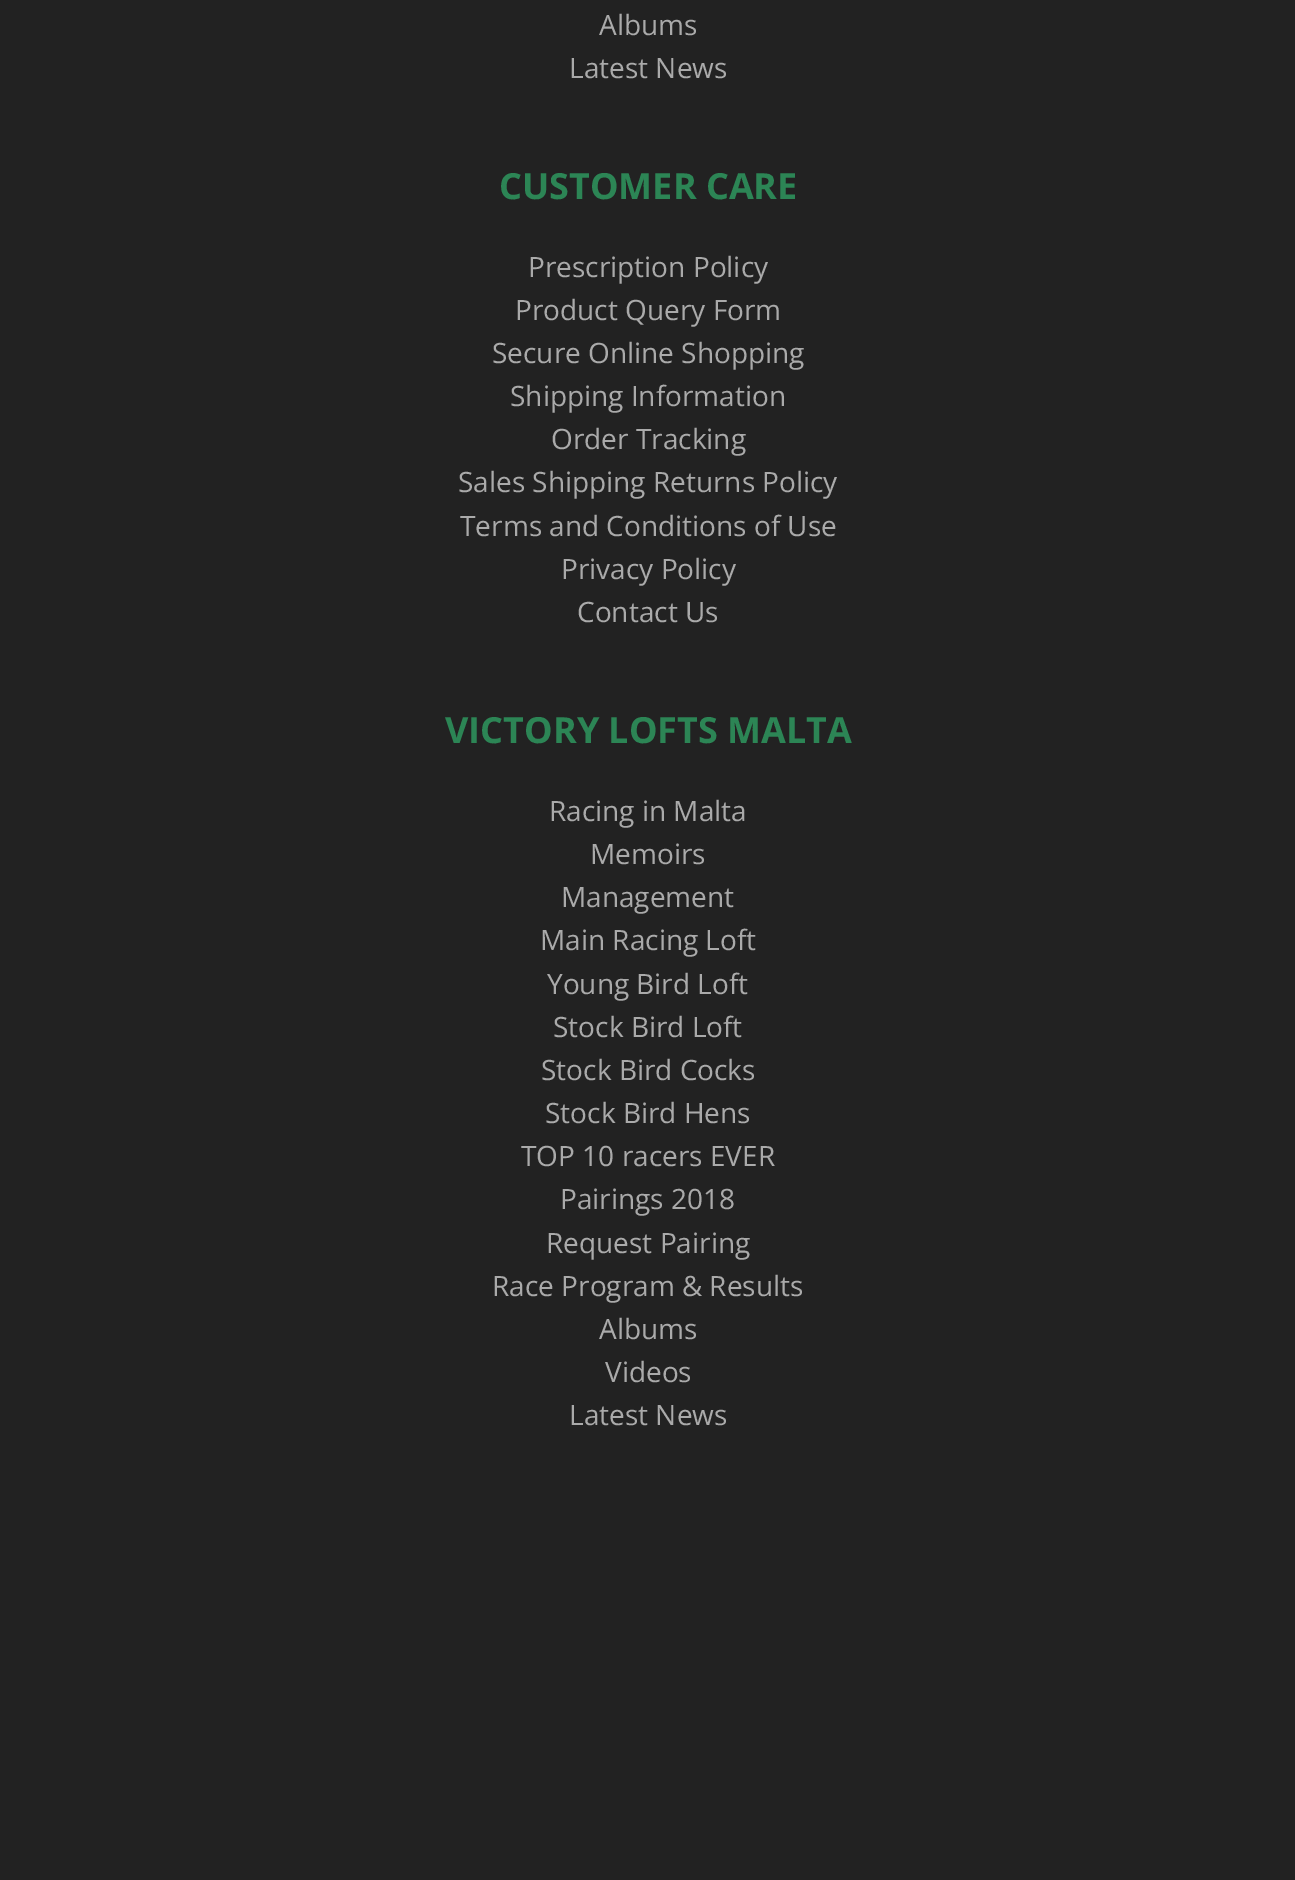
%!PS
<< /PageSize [1295 1880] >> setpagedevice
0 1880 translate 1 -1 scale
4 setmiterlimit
0.133 setgray
0 0 1295 1880 rectfill
/OpenSans-Regular [28 0 0 -28 0 0] selectfont
0.667 setgray
599 35 moveto (Albums) show
569 78 moveto (Latest News) show
/OpenSans-Bold [36 0 0 -36 0 0] selectfont
0.173 0.522 0.333 setrgbcolor
499 199 moveto (CUSTOMER CARE) show
/OpenSans-Regular [28 0 0 -28 0 0] selectfont
0.667 setgray
528 277 moveto (Prescription Policy) show
515 320 moveto (Product Query Form) show
492 363 moveto (Secure Online Shopping) show
510 406 moveto (Shipping Information) show
551 449 moveto (Order Tracking) show
458 492 moveto (Sales Shipping Returns Policy) show
460 536 moveto (Terms and Conditions of Use) show
561 579 moveto (Privacy Policy) show
577 622 moveto (Contact Us) show
/OpenSans-Bold [36 0 0 -36 0 0] selectfont
0.173 0.522 0.333 setrgbcolor
445 743 moveto (VICTORY LOFTS MALTA) show
/OpenSans-Regular [28 0 0 -28 0 0] selectfont
0.667 setgray
549 821 moveto (Racing in Malta) show
590 864 moveto (Memoirs) show
561 907 moveto (Management) show
540 950 moveto (Main Racing Loft) show
547 994 moveto (Young Bird Loft) show
553 1037 moveto (Stock Bird Loft) show
541 1080 moveto (Stock Bird Cocks) show
545 1123 moveto (Stock Bird Hens) show
521 1166 moveto (TOP 10 racers EVER) show
560 1209 moveto (Pairings 2018) show
546 1253 moveto (Request Pairing) show
492 1296 moveto (Race Program & Results) show
599 1339 moveto (Albums) show
605 1382 moveto (Videos) show
569 1425 moveto (Latest News) show
showpage
